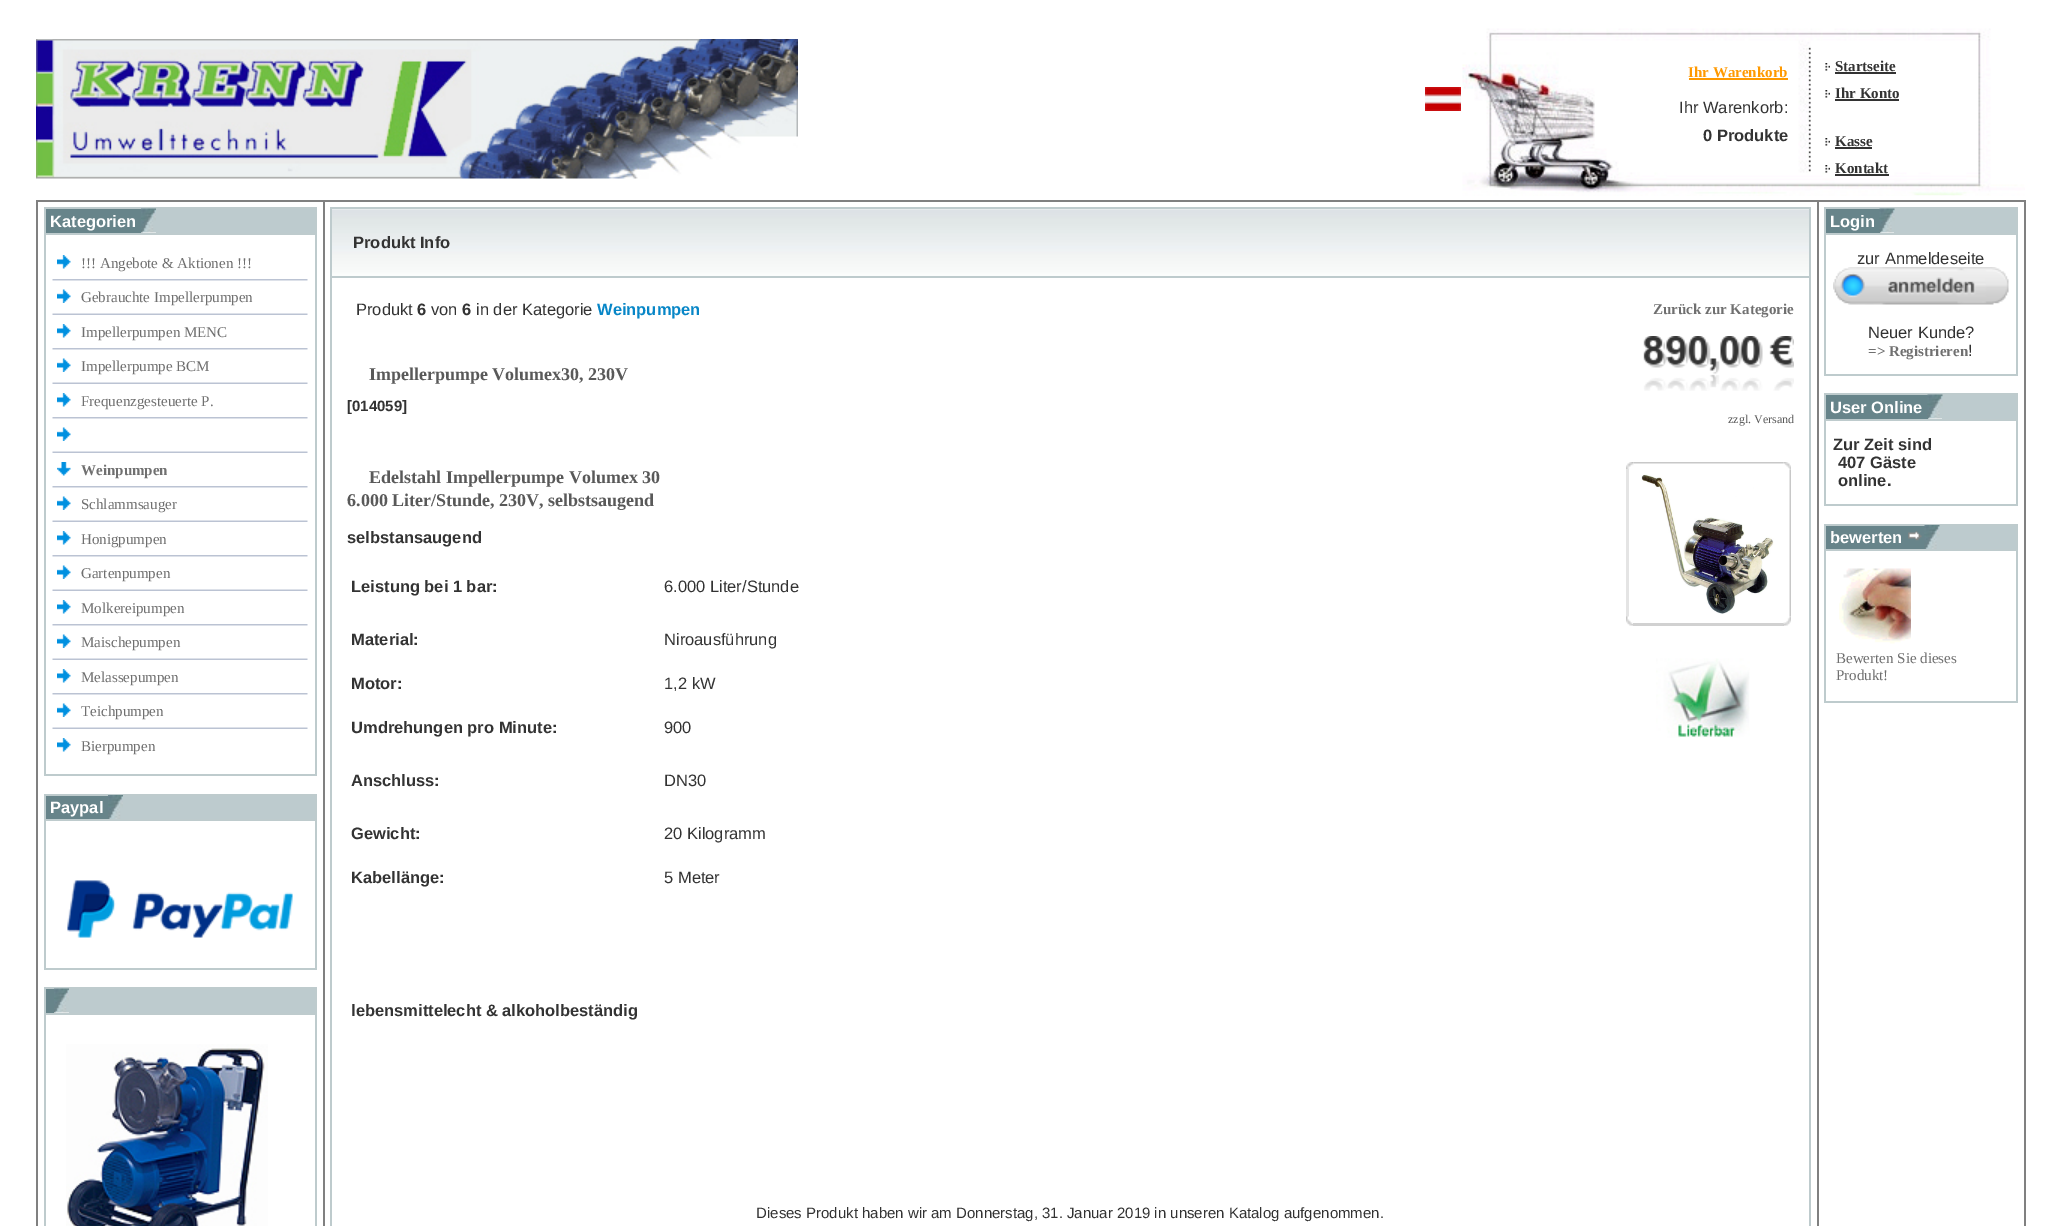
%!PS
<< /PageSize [2061 1226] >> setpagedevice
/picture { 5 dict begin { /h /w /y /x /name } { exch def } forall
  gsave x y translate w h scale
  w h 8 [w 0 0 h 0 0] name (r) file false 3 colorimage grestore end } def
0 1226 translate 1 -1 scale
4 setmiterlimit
1 setgray
0 0 2061 1226 rectfill
(img1.rgb) 36 39 762 140 picture
(img2.rgb) 1425 87 36 24 picture
(img3.rgb) 1462 28 563 168 picture
/LiberationSerif-Bold [15 0 0 -15 0 0] selectfont
1 0.6 0 setrgbcolor
1688 77 moveto (Ihr Warenkorb) show
1689 78 99 2 rectfill
/LiberationSans-Regular [16.5 0 0 -16.5 0 0] selectfont
0.2 setgray
1679 113 moveto (Ihr Warenkorb:) show
/LiberationSans-Bold [16.5 0 0 -16.5 0 0] selectfont
1703 141 moveto (0 Produkte) show
(img4.rgb) 1825 63 5 8 picture
/LiberationSerif-Bold [15 0 0 -15 0 0] selectfont
1835 71 moveto (Startseite) show
1835 72 61 2 rectfill
(img4.rgb) 1825 90 5 8 picture
1835 98 moveto (Ihr Konto) show
1835 99 64 2 rectfill
(img4.rgb) 1825 138 5 8 picture
1835 146 moveto (Kasse) show
1835 147 37 2 rectfill
(img5.rgb) 1825 165 5 8 picture
1835 173 moveto (Kontakt) show
1835 174 54 2 rectfill
0.502 setgray
36 200 1989 2 rectfill
2024 200 2 1026 rectfill
36 200 2 1026 rectfill
0.745 0.796 0.804 setrgbcolor
44 207 273 2 rectfill
315 207 2 569 rectfill
44 774 273 2 rectfill
44 207 2 569 rectfill
0.404 0.518 0.541 setrgbcolor
46 209 95 24 rectfill
/LiberationSans-Bold [16.5 0 0 -16.5 0 0] selectfont
1 setgray
50 227 moveto (Kategorien) show
(img6.rgb) 141 208 15 25 picture
0.741 0.796 0.808 setrgbcolor
156 209 159 24 rectfill
0.745 0.796 0.804 setrgbcolor
44 233 273 2 rectfill
(img7.rgb) 57 255 14 14 picture
/LiberationSerif-Regular [15 0 0 -15 0 0] selectfont
0.439 setgray
81 268 moveto (!!! Angebote & Aktionen !!!) show
(img8.rgb) 52 279 256 2 picture
(img9.rgb) 57 289 14 14 picture
81 302 moveto (Gebrauchte Impellerpumpen) show
(img10.rgb) 52 313 256 2 picture
(img7.rgb) 57 324 14 14 picture
81 337 moveto (Impellerpumpen MENC) show
(img8.rgb) 52 348 256 2 picture
(img9.rgb) 57 358 14 14 picture
81 371 moveto (Impellerpumpe BCM) show
(img10.rgb) 52 382 256 2 picture
(img7.rgb) 57 393 14 14 picture
81 406 moveto (Frequenzgesteuerte P.) show
(img8.rgb) 52 417 256 2 picture
(img9.rgb) 57 427 14 14 picture
(img10.rgb) 52 451 256 2 picture
(img11.rgb) 57 462 14 14 picture
/LiberationSerif-Bold [15 0 0 -15 0 0] selectfont
81 475 moveto (Weinpumpen) show
(img8.rgb) 52 486 256 2 picture
(img9.rgb) 57 496 14 14 picture
/LiberationSerif-Regular [15 0 0 -15 0 0] selectfont
81 509 moveto (Schlammsauger) show
(img10.rgb) 52 520 256 2 picture
(img7.rgb) 57 531 14 14 picture
81 544 moveto (Honigpumpen) show
(img8.rgb) 52 555 256 2 picture
(img9.rgb) 57 565 14 14 picture
81 578 moveto (Gartenpumpen) show
(img10.rgb) 52 589 256 2 picture
(img7.rgb) 57 600 14 14 picture
81 613 moveto (Molkereipumpen) show
(img8.rgb) 52 624 256 2 picture
(img9.rgb) 57 634 14 14 picture
81 647 moveto (Maischepumpen) show
(img10.rgb) 52 658 256 2 picture
(img7.rgb) 57 669 14 14 picture
81 682 moveto (Melassepumpen) show
(img8.rgb) 52 693 256 2 picture
(img9.rgb) 57 703 14 14 picture
81 716 moveto (Teichpumpen) show
(img10.rgb) 52 727 256 2 picture
(img7.rgb) 57 738 14 14 picture
81 751 moveto (Bierpumpen) show
0.745 0.796 0.804 setrgbcolor
44 794 273 2 rectfill
315 794 2 175 rectfill
44 968 273 2 rectfill
44 794 2 175 rectfill
0.404 0.518 0.541 setrgbcolor
46 796 62 23 rectfill
/LiberationSans-Bold [16.5 0 0 -16.5 0 0] selectfont
1 setgray
50 813 moveto (Paypal) show
(img12.rgb) 108 795 15 24 picture
0.741 0.796 0.808 setrgbcolor
123 796 192 23 rectfill
0.745 0.796 0.804 setrgbcolor
44 819 273 2 rectfill
(img13.rgb) 67 880 226 58 picture
44 987 273 2 rectfill
315 987 2 239 rectfill
44 987 2 239 rectfill
0.404 0.518 0.541 setrgbcolor
46 989 8 24 rectfill
(img6.rgb) 54 988 15 25 picture
0.741 0.796 0.808 setrgbcolor
69 989 246 24 rectfill
0.745 0.796 0.804 setrgbcolor
44 1013 273 2 rectfill
(img14.rgb) 66 1044 202 182 picture
0.502 setgray
323 200 2 1026 rectfill
0.745 0.796 0.804 setrgbcolor
330 207 1481 2 rectfill
1809 207 2 1019 rectfill
330 207 2 1019 rectfill
(img15.rgb) 332 209 1477 67 picture
0.2 setgray
353 248 moveto (Produkt Info) show
0.745 0.796 0.804 setrgbcolor
330 276 1481 2 rectfill
/LiberationSans-Regular [16.5 0 0 -16.5 0 0] selectfont
0.2 setgray
356 315 moveto (Produkt) show
/LiberationSans-Bold [16.5 0 0 -16.5 0 0] selectfont
417 315 moveto (6) show
/LiberationSans-Regular [16.5 0 0 -16.5 0 0] selectfont
431 315 moveto (von) show
/LiberationSans-Bold [16.5 0 0 -16.5 0 0] selectfont
462 315 moveto (6) show
/LiberationSans-Regular [16.5 0 0 -16.5 0 0] selectfont
476 315 moveto (in der Kategorie) show
/LiberationSans-Bold [16.5 0 0 -16.5 0 0] selectfont
0.027 0.525 0.78 setrgbcolor
597 315 moveto (Weinpumpen) show
/LiberationSerif-Bold [15 0 0 -15 0 0] selectfont
0.439 setgray
1653 314 moveto (Zurück zur Kategorie) show
/LiberationSerif-Bold [18 0 0 -18 0 0] selectfont
0.349 setgray
369 380 moveto (Impellerpumpe Volumex30, 230V) show
/LiberationSans-Bold [15 0 0 -15 0 0] selectfont
0.2 setgray
347 411 moveto ([014059]) show
(img16.rgb) 1643 336 151 55 picture
/LiberationSerif-Regular [12 0 0 -12 0 0] selectfont
0.349 setgray
1728 423 moveto (zzgl. Versand) show
/LiberationSerif-Bold [18 0 0 -18 0 0] selectfont
369 483 moveto (Edelstahl Impellerpumpe Volumex 30) show
347 506 moveto (6.000 Liter/Stunde, 230V, selbstsaugend) show
/LiberationSans-Bold [16.5 0 0 -16.5 0 0] selectfont
0.2 setgray
347 543 moveto (selbstansaugend) show
351 592 moveto (Leistung bei 1 bar:) show
/LiberationSans-Regular [16.5 0 0 -16.5 0 0] selectfont
664 592 moveto (6.000 Liter/Stunde) show
/LiberationSans-Bold [16.5 0 0 -16.5 0 0] selectfont
351 645 moveto (Material:) show
/LiberationSans-Regular [16.5 0 0 -16.5 0 0] selectfont
664 645 moveto (Niroausführung) show
/LiberationSans-Bold [16.5 0 0 -16.5 0 0] selectfont
351 689 moveto (Motor:) show
/LiberationSans-Regular [16.5 0 0 -16.5 0 0] selectfont
664 689 moveto (1,2 kW) show
/LiberationSans-Bold [16.5 0 0 -16.5 0 0] selectfont
351 733 moveto (Umdrehungen pro Minute:) show
/LiberationSans-Regular [16.5 0 0 -16.5 0 0] selectfont
664 733 moveto (900) show
/LiberationSans-Bold [16.5 0 0 -16.5 0 0] selectfont
351 786 moveto (Anschluss:) show
/LiberationSans-Regular [16.5 0 0 -16.5 0 0] selectfont
664 786 moveto (DN30) show
/LiberationSans-Bold [16.5 0 0 -16.5 0 0] selectfont
351 839 moveto (Gewicht:) show
/LiberationSans-Regular [16.5 0 0 -16.5 0 0] selectfont
664 839 moveto (20 Kilogramm) show
/LiberationSans-Bold [16.5 0 0 -16.5 0 0] selectfont
351 883 moveto (Kabellänge:) show
/LiberationSans-Regular [16.5 0 0 -16.5 0 0] selectfont
664 883 moveto (5 Meter) show
/LiberationSans-Bold [16.5 0 0 -16.5 0 0] selectfont
351 1016 moveto (lebensmittelecht & alkoholbeständig) show
(img17.rgb) 1626 462 8 8 picture
(img18.rgb) 1633 462 151 2 picture
(img19.rgb) 1783 462 8 8 picture
0.894 setgray
1626 469 3 148 rectfill
(img20.rgb) 1641 474 133 140 picture
(img21.rgb) 1789 469 2 148 picture
(img22.rgb) 1626 616 8 10 picture
0.82 setgray
1633 623 151 3 rectfill
(img23.rgb) 1783 616 8 10 picture
(img24.rgb) 1656 658 94 80 picture
/LiberationSans-Regular [15 0 0 -15 0 0] selectfont
0.2 setgray
756 1218 moveto (Dieses Produkt haben wir am Donnerstag, 31. Januar 2019 in unseren Katalog aufgenommen.) show
0.502 setgray
1817 200 2 1026 rectfill
0.745 0.796 0.804 setrgbcolor
1824 207 194 2 rectfill
2016 207 2 168 rectfill
1824 374 194 2 rectfill
1824 207 2 168 rectfill
0.404 0.518 0.541 setrgbcolor
1826 209 54 24 rectfill
/LiberationSans-Bold [16.5 0 0 -16.5 0 0] selectfont
1 setgray
1830 227 moveto (Login) show
0.741 0.796 0.808 setrgbcolor
1894 209 122 24 rectfill
(img25.rgb) 1879 208 16 25 picture
0.745 0.796 0.804 setrgbcolor
1824 233 194 2 rectfill
/LiberationSans-Regular [16.5 0 0 -16.5 0 0] selectfont
0.2 setgray
1857 264 moveto (zur Anmeldeseite) show
(img26.rgb) 1833 267 176 38 picture
1868 338 moveto (Neuer Kunde?) show
/LiberationSerif-Bold [15 0 0 -15 0 0] selectfont
0.439 setgray
1868 356 moveto (=> Registrieren) show
/LiberationSans-Regular [16.5 0 0 -16.5 0 0] selectfont
0.2 setgray
1968 356 moveto (!) show
0.745 0.796 0.804 setrgbcolor
1824 393 194 2 rectfill
2016 393 2 113 rectfill
1824 504 194 2 rectfill
1824 393 2 113 rectfill
0.404 0.518 0.541 setrgbcolor
1826 395 102 24 rectfill
/LiberationSans-Bold [16.5 0 0 -16.5 0 0] selectfont
1 setgray
1830 413 moveto (User Online) show
0.741 0.796 0.808 setrgbcolor
1942 395 74 24 rectfill
(img25.rgb) 1927 394 16 25 picture
0.745 0.796 0.804 setrgbcolor
1824 419 194 2 rectfill
0.2 setgray
1833 450 moveto (Zur Zeit sind) show
1838 468 moveto (407 Gäste) show
1838 486 moveto (online.) show
0.745 0.796 0.804 setrgbcolor
1824 524 194 2 rectfill
2016 524 2 178 rectfill
1824 701 194 2 rectfill
1824 524 2 178 rectfill
0.404 0.518 0.541 setrgbcolor
1826 526 99 23 rectfill
1 setgray
1830 543 moveto (bewerten) show
(img27.rgb) 1908 531 14 10 picture
0.741 0.796 0.808 setrgbcolor
1939 526 77 23 rectfill
(img28.rgb) 1924 525 16 24 picture
0.745 0.796 0.804 setrgbcolor
1824 549 194 2 rectfill
(img29.rgb) 1839 568 72 76 picture
/LiberationSerif-Regular [15 0 0 -15 0 0] selectfont
0.439 setgray
1836 663 moveto (Bewerten Sie dieses) show
1836 680 moveto (Produkt!) show
showpage
